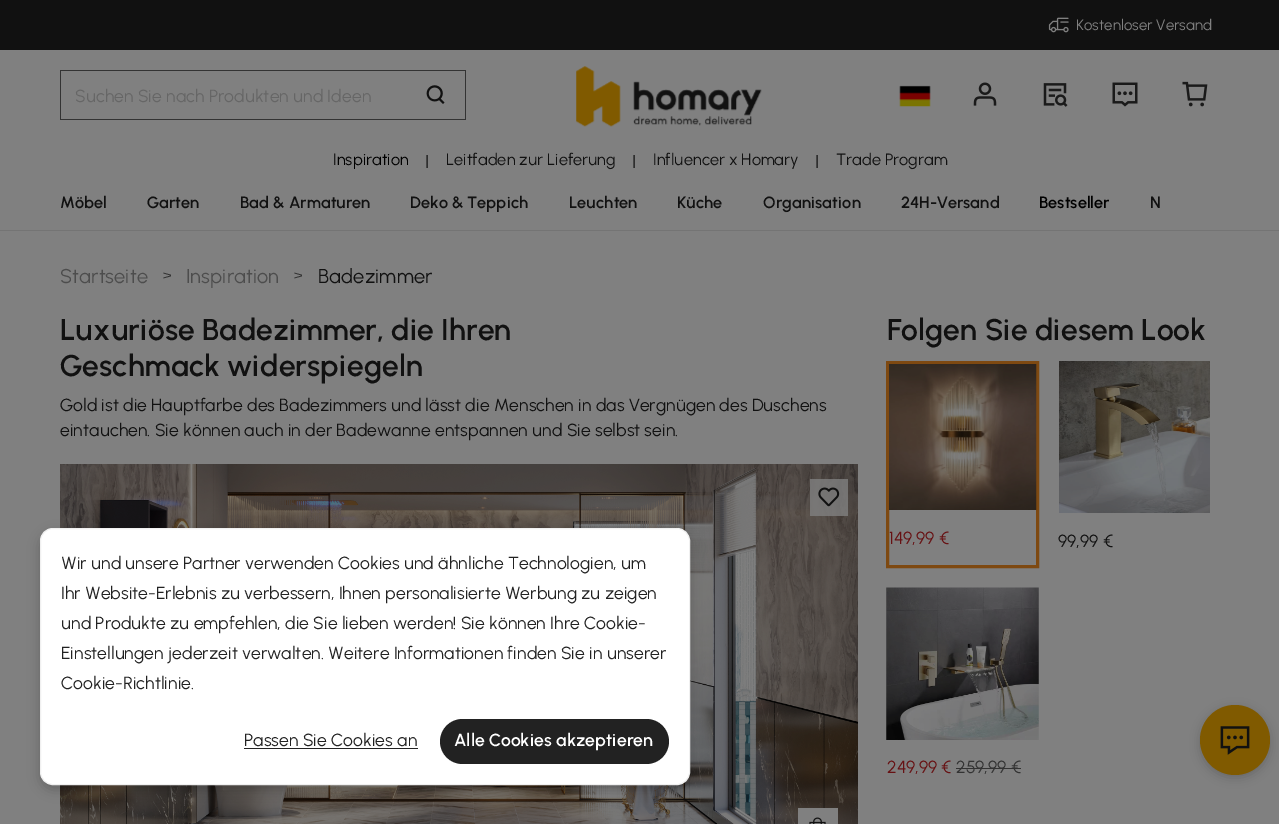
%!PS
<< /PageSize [1279 824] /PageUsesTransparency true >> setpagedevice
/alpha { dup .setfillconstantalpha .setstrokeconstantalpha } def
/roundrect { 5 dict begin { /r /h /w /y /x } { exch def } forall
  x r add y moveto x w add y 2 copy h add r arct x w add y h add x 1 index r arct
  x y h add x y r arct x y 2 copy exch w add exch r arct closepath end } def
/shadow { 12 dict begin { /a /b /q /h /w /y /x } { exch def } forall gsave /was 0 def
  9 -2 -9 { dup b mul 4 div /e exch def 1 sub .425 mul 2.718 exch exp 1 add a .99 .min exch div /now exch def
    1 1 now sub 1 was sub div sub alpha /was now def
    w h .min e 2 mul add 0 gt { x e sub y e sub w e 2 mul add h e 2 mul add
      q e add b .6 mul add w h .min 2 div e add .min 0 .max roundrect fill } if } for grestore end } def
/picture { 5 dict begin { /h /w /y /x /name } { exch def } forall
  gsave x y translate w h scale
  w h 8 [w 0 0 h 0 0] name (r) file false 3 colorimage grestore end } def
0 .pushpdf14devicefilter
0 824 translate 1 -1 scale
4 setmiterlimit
0.502 setgray
0 0 1279 824 rectfill
0.067 setgray
0 0 1279 50 rectfill
(img1.rgb) 1048 17 21 16 picture
/Urbanist-Regular [15 0 0 -15 0 0] selectfont
0.502 setgray
1076 30 moveto (Kostenloser Versand) show
0.2 setgray
60 70 406 1 rectfill
60 119 346 1 rectfill
60 70 1 50 rectfill
/Urbanist-Regular [17.5 0 0 -17.5 0 0] selectfont
0.4 setgray
75 102 moveto (Suchen Sie nach Produkten und Ideen) show
0.2 setgray
465 70 1 50 rectfill
406 119 60 1 rectfill
(img2.rgb) 426 85 19 19 picture
(img3.rgb) 576 66 186 61 picture
0.478 setgray
900 85 30 20 rectfill
(img4.rgb) 899 86 32 21 picture
(img5.rgb) 973 82 24 24 picture
(img6.rgb) 1043 83 25 24 picture
(img7.rgb) 1112 82 26 25 picture
(img8.rgb) 1182 81 26 26 picture
0.455 setgray
0 230 1279 1 rectfill
/Urbanist-Regular [16.25 0 0 -16.25 0 0] selectfont
0 setgray
333 165 moveto (Inspiration) show
gsave
425 153 4 15 rectclip
/Urbanist-Regular [20 0 0 -20 0 0] selectfont
0.067 setgray
425 169 moveto (|) show
grestore
0.067 setgray
446 165 moveto (Leitfaden zur Lieferung) show
gsave
633 153 4 15 rectclip
/Urbanist-Regular [20 0 0 -20 0 0] selectfont
632 169 moveto (|) show
grestore
653 165 moveto (Influencer x Homary) show
gsave
815 153 4 15 rectclip
/Urbanist-Regular [20 0 0 -20 0 0] selectfont
815 169 moveto (|) show
grestore
836 165 moveto (Trade Program) show
/Urbanist-SemiBold [16.25 0 0 -16.25 0 0] selectfont
60 208 moveto (Möbel) show
147 208 moveto (Garten) show
240 208 moveto (Bad & Armaturen) show
410 208 moveto (Deko & Teppich) show
569 208 moveto (Leuchten) show
677 208 moveto (Küche) show
763 208 moveto (Organisation) show
901 208 moveto (24H-Versand) show
0 setgray
1039 208 moveto (Bestseller) show
0.067 setgray
1150 208 moveto (N) show
/Urbanist-Regular [20 0 0 -20 0 0] selectfont
0.302 setgray
60 283 moveto (Startseite) show
/Urbanist-Regular [15 0 0 -15 0 0] selectfont
0.2 setgray
163 280 moveto (>) show
/Urbanist-Regular [20 0 0 -20 0 0] selectfont
0.302 setgray
186 283 moveto (Inspiration) show
/Urbanist-Regular [15 0 0 -15 0 0] selectfont
0.2 setgray
294 280 moveto (>) show
/Urbanist-Regular [20 0 0 -20 0 0] selectfont
0.067 setgray
318 283 moveto (Badezimmer) show
/Urbanist-SemiBold [30 0 0 -30 0 0] selectfont
60 340 moveto (Luxuriöse Badezimmer, die Ihren) show
60 376 moveto (Geschmack widerspiegeln) show
/Urbanist-Regular [17.5 0 0 -17.5 0 0] selectfont
60 411 moveto (Gold ist die Hauptfarbe des Badezimmers und lässt die Menschen in das Vergnügen des Duschens) show
60 436 moveto (eintauchen. Sie können auch in der Badewanne entspannen und Sie selbst sein.) show
(img9.rgb) 60 464 798 360 picture
0.8 alpha
0.502 setgray
810 479 38 37 rectfill
1 alpha
(img10.rgb) 818 487 22 20 picture
798 808 40 16 rectfill
(img11.rgb) 809 817 17 7 picture
/Urbanist-SemiBold [30 0 0 -30 0 0] selectfont
0.067 setgray
887 340 moveto (Folgen Sie diesem Look) show
0.494 0.286 0.067 setrgbcolor
3 setlinewidth
887.5 362.5 150 204 rectstroke
(img12.rgb) 889 364 148 146 picture
/Urbanist-Regular [17.5 0 0 -17.5 0 0] selectfont
0.404 0.067 0.075 setrgbcolor
889 544 moveto (149,99 €) show
(img13.rgb) 1059 361 151 152 picture
0.067 setgray
1058 547 moveto (99,99 €) show
(img14.rgb) 886 587 153 153 picture
0.404 0.067 0.075 setrgbcolor
887 773 moveto (249,99 €) show
0.2 setgray
956 773 moveto (259,99 €) show
956 768 65 1 rectfill
0 setgray
40 533 650 257 13 6 0.2 shadow
1 setgray
40.5 528.5 649 256 12.5 roundrect gsave fill grestore
0.941 setgray
1 setlinewidth
stroke
0.133 setgray
61 569 moveto (Wir und unsere Partner verwenden Cookies und ähnliche Technologien, um) show
61 599 moveto (Ihr Website-Erlebnis zu verbessern, Ihnen personalisierte Werbung zu zeigen) show
61 629 moveto (und Produkte zu empfehlen, die Sie lieben werden! Sie können Ihre Cookie-) show
61 659 moveto (Einstellungen jederzeit verwalten. Weitere Informationen finden Sie in unserer) show
61 689 moveto (Cookie-Richtlinie.) show
244 746 moveto (Passen Sie Cookies an) show
244 748 174 1 rectfill
440 719 229 45 22.5 roundrect fill
/Urbanist-SemiBold [17.5 0 0 -17.5 0 0] selectfont
1 setgray
454 746 moveto (Alle Cookies akzeptieren) show
0 setgray
1200 708 70 70 35 5 0.18 shadow
0.502 0.353 0 setrgbcolor
newpath 1235 740 35 0 360 arc closepath fill
(img15.rgb) 1220 726 30 29 picture
.poppdf14devicefilter showpage
